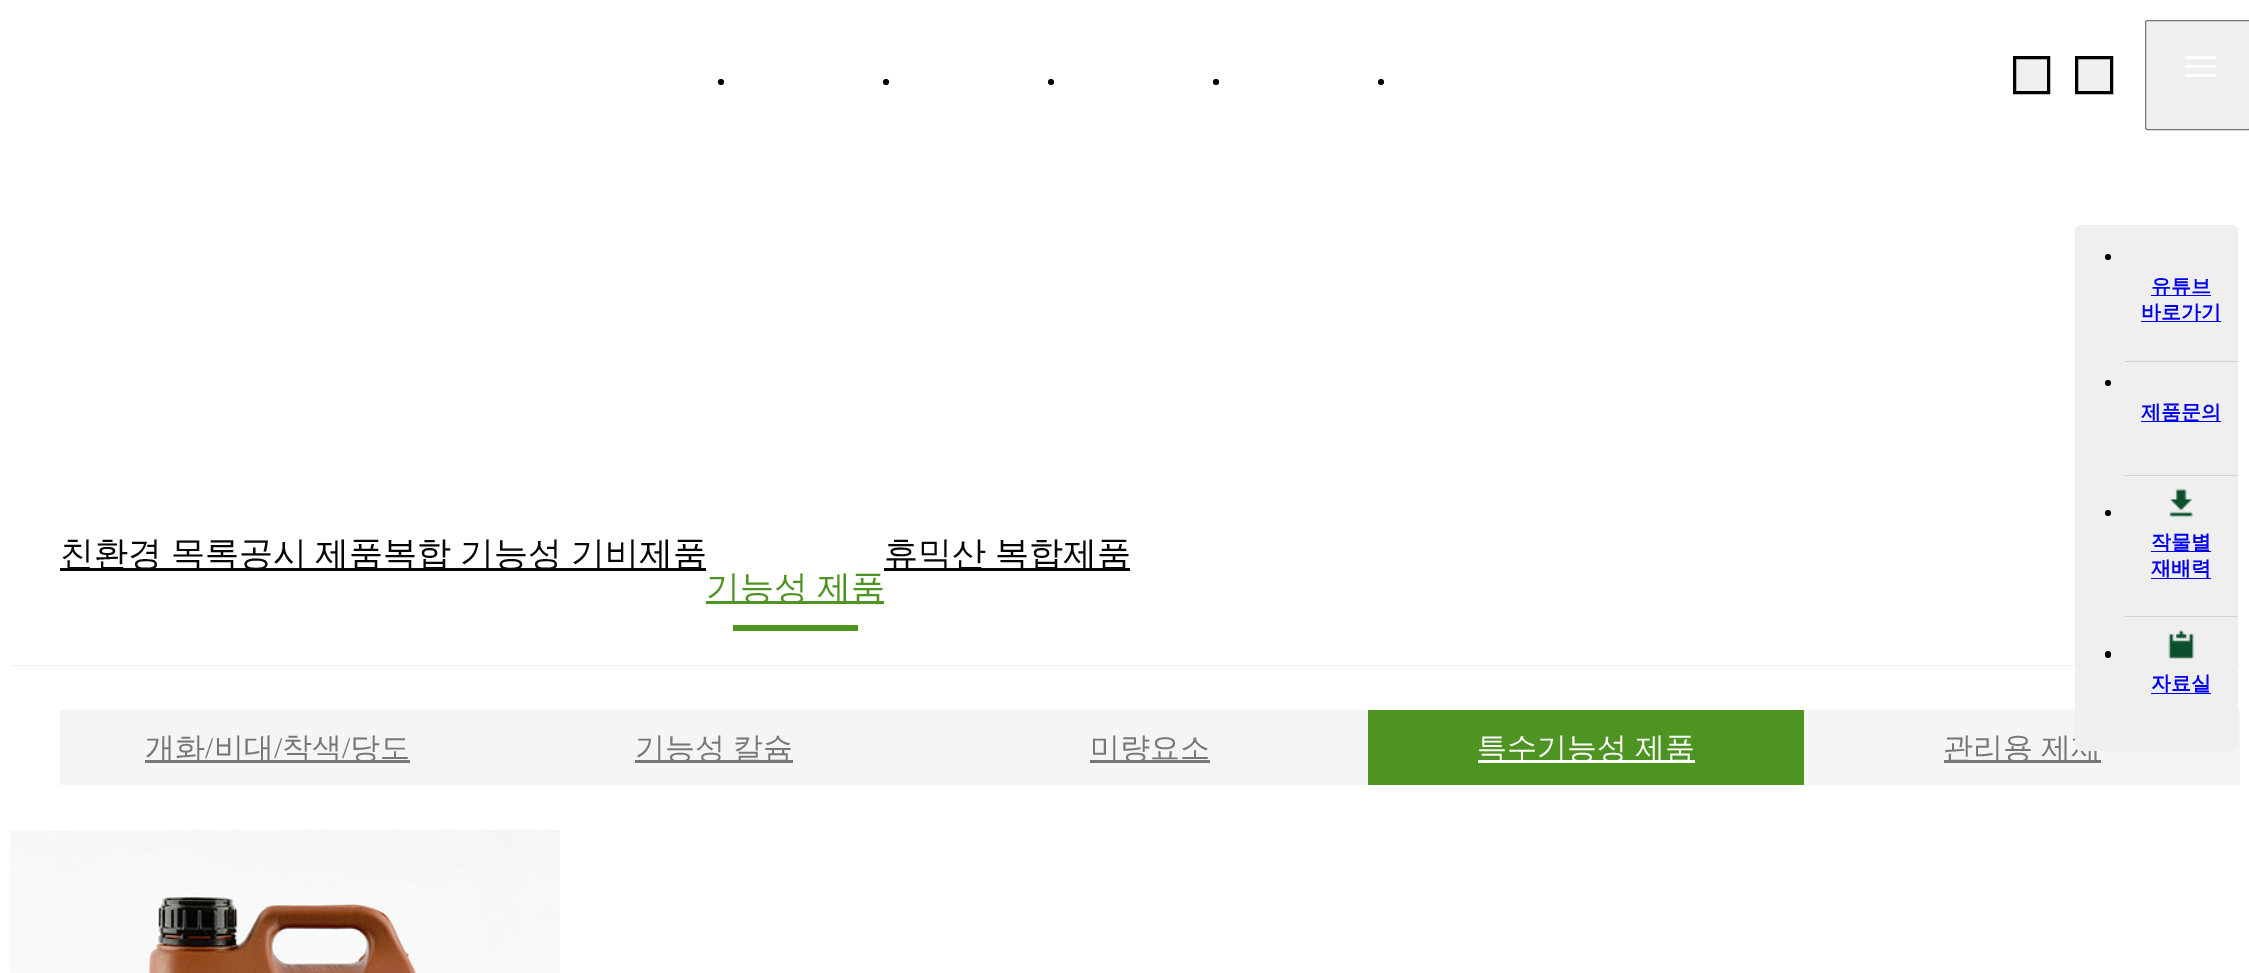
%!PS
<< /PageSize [2249 973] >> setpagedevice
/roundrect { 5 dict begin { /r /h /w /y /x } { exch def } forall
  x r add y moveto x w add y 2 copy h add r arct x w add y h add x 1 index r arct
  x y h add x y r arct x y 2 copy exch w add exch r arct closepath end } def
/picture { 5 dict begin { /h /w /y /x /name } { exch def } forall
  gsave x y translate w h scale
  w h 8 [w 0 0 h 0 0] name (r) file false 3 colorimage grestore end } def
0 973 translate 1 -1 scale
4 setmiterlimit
1 setgray
0 0 2249 973 rectfill
0 setgray
newpath 721 82 3 0 360 arc closepath fill
newpath 886 82 3 0 360 arc closepath fill
newpath 1051 82 3 0 360 arc closepath fill
newpath 1216 82 3 0 360 arc closepath fill
newpath 1381 82 3 0 360 arc closepath fill
0.937 setgray
newpath 2014.5 57.5 moveto 2048.5 57.5 lineto 2048.5 92.5 lineto 2014.5 92.5 lineto closepath gsave fill grestore
0 setgray
3 setlinewidth
stroke
0.937 setgray
newpath 2076.5 57.5 moveto 2111.5 57.5 lineto 2111.5 92.5 lineto 2076.5 92.5 lineto closepath gsave fill grestore
0 setgray
stroke
0.937 setgray
2145.5 20.5 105 109 2 roundrect gsave fill grestore
0.463 setgray
1 setlinewidth
stroke
1 setgray
2185 56 31 3 rectfill
2185 65 31 3 rectfill
2185 74 31 3 rectfill
0.933 setgray
10 665 2230 1 rectfill
0.024 setgray
60 568 646 3 rectfill
/WenQuanYiZenHei-Medium [34 0 0 -34 0 0] selectfont
60 565 moveto -1.5 0 32 (친환경 목록공시 제품복합 기능성 기비제품) widthshow
884 568 246 3 rectfill
884 565 moveto -1.5 0 32 (휴믹산 복합제품) widthshow
0.306 0.58 0.137 setrgbcolor
706 601 178 3 rectfill
706 599 moveto -1.5 0 32 (기능성 제품) widthshow
733 625 125 6 rectfill
0.961 setgray
1804 710 436 75 rectfill
0.467 setgray
1944 760 157 3 rectfill
/WenQuanYiZenHei-Medium [30 0 0 -30 0 0] selectfont
1943 758 moveto -1 0 32 (관리용 제제) widthshow
0.937 setgray
2075 225 163 526 6 roundrect fill
0.824 setgray
2125 361 113 1 rectfill
0 setgray
newpath 2108 257 3 0 360 arc closepath fill
0 0 0.933 setrgbcolor
2151 295 60 1 rectfill
/WenQuanYiZenHei-Bold [20 0 0 -20 0 0] selectfont
2151 293 moveto (유튜브) show
2141 321 80 1 rectfill
2141 319 moveto (바로가기) show
0.824 setgray
2125 475 113 1 rectfill
0 setgray
newpath 2108 383 3 0 360 arc closepath fill
0 0 0.933 setrgbcolor
2141 421 80 1 rectfill
2141 419 moveto (제품문의) show
0.824 setgray
2125 616 113 1 rectfill
0 setgray
newpath 2108 513 3 0 360 arc closepath fill
(img1.rgb) 2169 488 25 30 picture
0 0 0.933 setrgbcolor
2151 551 60 1 rectfill
2151 549 moveto (작물별) show
2151 575 moveto (재배력) show
2151 578 60 1 rectfill
0 setgray
2105 651 6 7 3 roundrect fill
(img2.rgb) 2168 630 27 29 picture
0 0 0.933 setrgbcolor
2151 690 moveto (자료실) show
2151 693 60 1 rectfill
0.961 setgray
60 710 1308 75 rectfill
0.467 setgray
145 760 265 3 rectfill
/WenQuanYiZenHei-Medium [30 0 0 -30 0 0] selectfont
145 758 moveto (개화) show
/LiberationSerif-Regular [30 0 0 -30 0 0] selectfont
205 758 moveto (/) show
/WenQuanYiZenHei-Medium [30 0 0 -30 0 0] selectfont
214 758 moveto (비대) show
/LiberationSerif-Regular [30 0 0 -30 0 0] selectfont
274 758 moveto (/) show
/WenQuanYiZenHei-Medium [30 0 0 -30 0 0] selectfont
282 758 moveto (착색) show
/LiberationSerif-Regular [30 0 0 -30 0 0] selectfont
342 758 moveto (/) show
/WenQuanYiZenHei-Medium [30 0 0 -30 0 0] selectfont
350 758 moveto (당도) show
635 760 158 3 rectfill
635 758 moveto -1 0 32 (기능성 칼슘) widthshow
1090 760 120 3 rectfill
1090 758 moveto (미량요소) show
0.306 0.58 0.137 setrgbcolor
1368 710 436 75 rectfill
1 setgray
1478 760 217 3 rectfill
1477 758 moveto -1 0 32 (특수기능성 제품) widthshow
(img3.rgb) 10 830 550 143 picture
showpage
